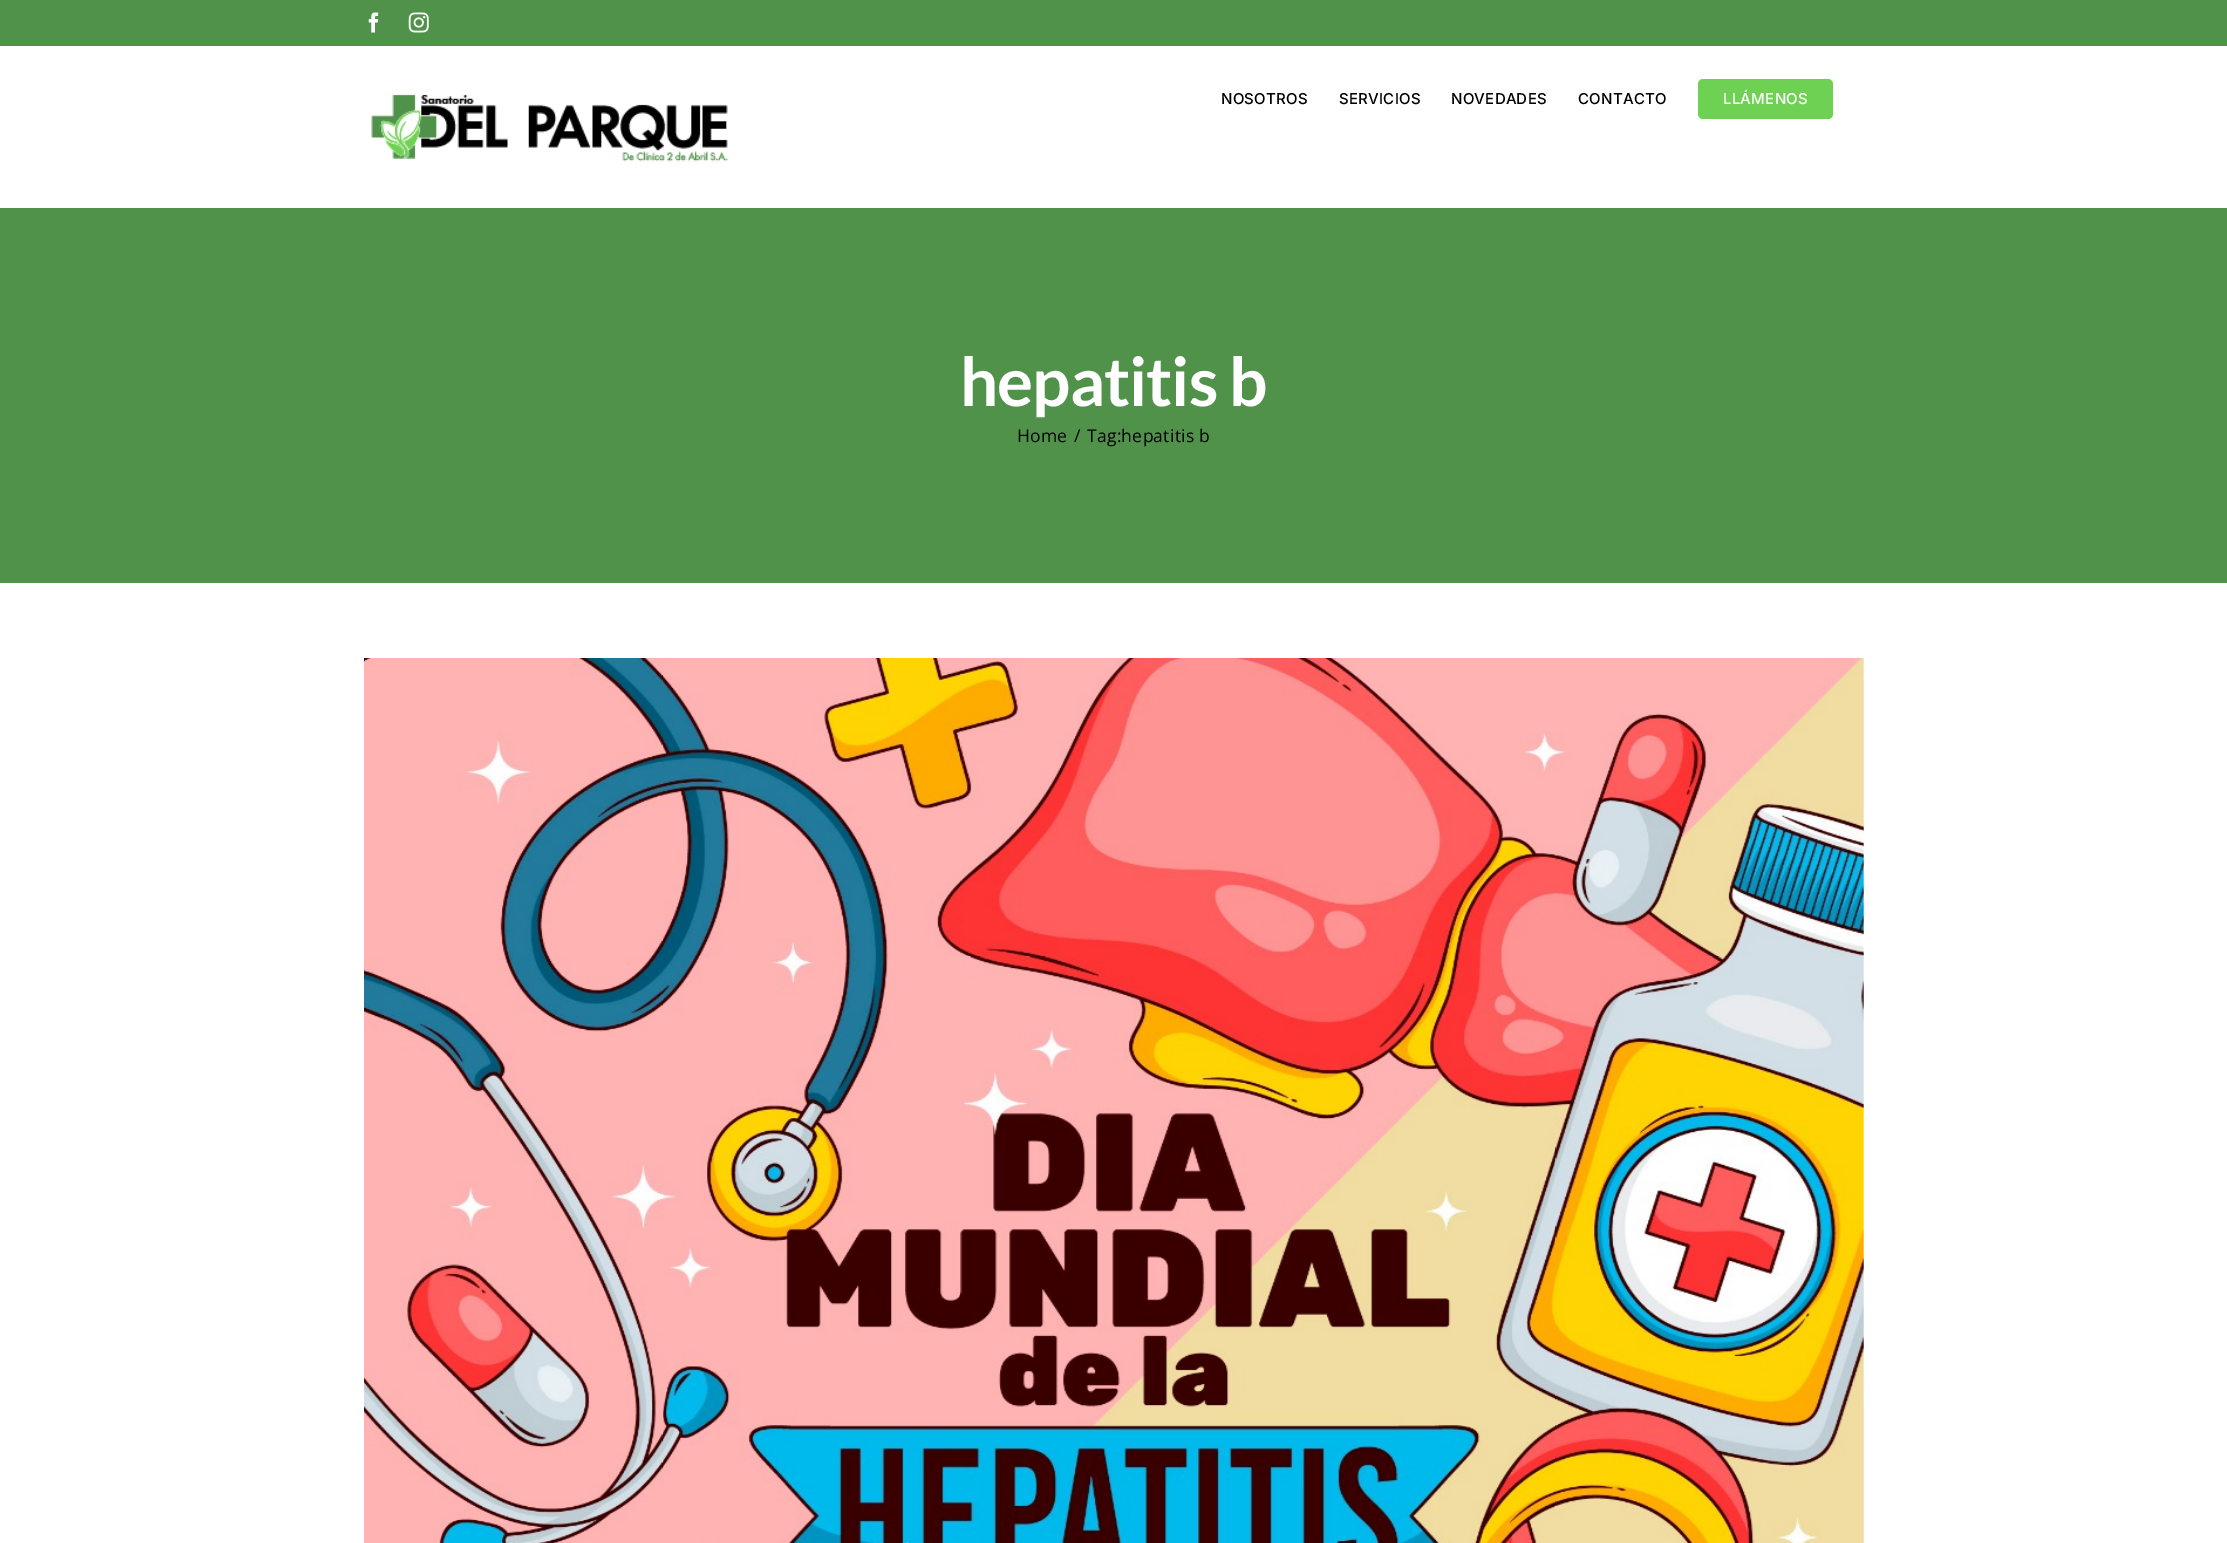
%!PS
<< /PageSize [2227 1543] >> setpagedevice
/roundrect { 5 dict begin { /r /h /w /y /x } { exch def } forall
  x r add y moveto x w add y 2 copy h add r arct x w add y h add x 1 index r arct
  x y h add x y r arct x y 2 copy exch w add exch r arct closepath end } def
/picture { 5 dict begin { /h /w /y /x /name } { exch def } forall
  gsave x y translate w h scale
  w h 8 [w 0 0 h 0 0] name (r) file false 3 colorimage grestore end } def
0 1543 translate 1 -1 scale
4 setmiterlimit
1 setgray
0 0 2227 1543 rectfill
0.318 0.573 0.294 setrgbcolor
0 0 2227 46 rectfill
(img1.rgb) 368 12 11 21 picture
(img2.rgb) 408 12 21 21 picture
(img3.rgb) 371 94 357 68 picture
/Inter-Medium [15 0 0 -15 0 0] selectfont
0 setgray
1221 104 moveto 0.25 0 (NOSOTROS) ashow
1339 104 moveto 0.25 0 (SERVICIOS) ashow
1451 104 moveto 0.25 0 (NOVEDADES) ashow
1578 104 moveto 0.25 0 (CONTACTO) ashow
0.435 0.82 0.325 setrgbcolor
1698 79 135 40 5 roundrect fill
1 setgray
1723 104 moveto 0.25 0 (LLÁMENOS) ashow
0.318 0.573 0.294 setrgbcolor
0 208 2227 375 rectfill
/Lato-Bold [67.5 0 0 -67.5 0 0] selectfont
1 setgray
960 406 moveto -1 0 (hepatitis b) ashow
/OpenSans-Regular [17.5 0 0 -17.5 0 0] selectfont
0 setgray
1017 442 moveto 0.25 0 (Home) ashow
1074 442 moveto 0.25 0 (/) ashow
1087 442 moveto 0.25 0 (Tag:hepatitis b) ashow
(img4.rgb) 364 658 1500 885 picture
showpage
